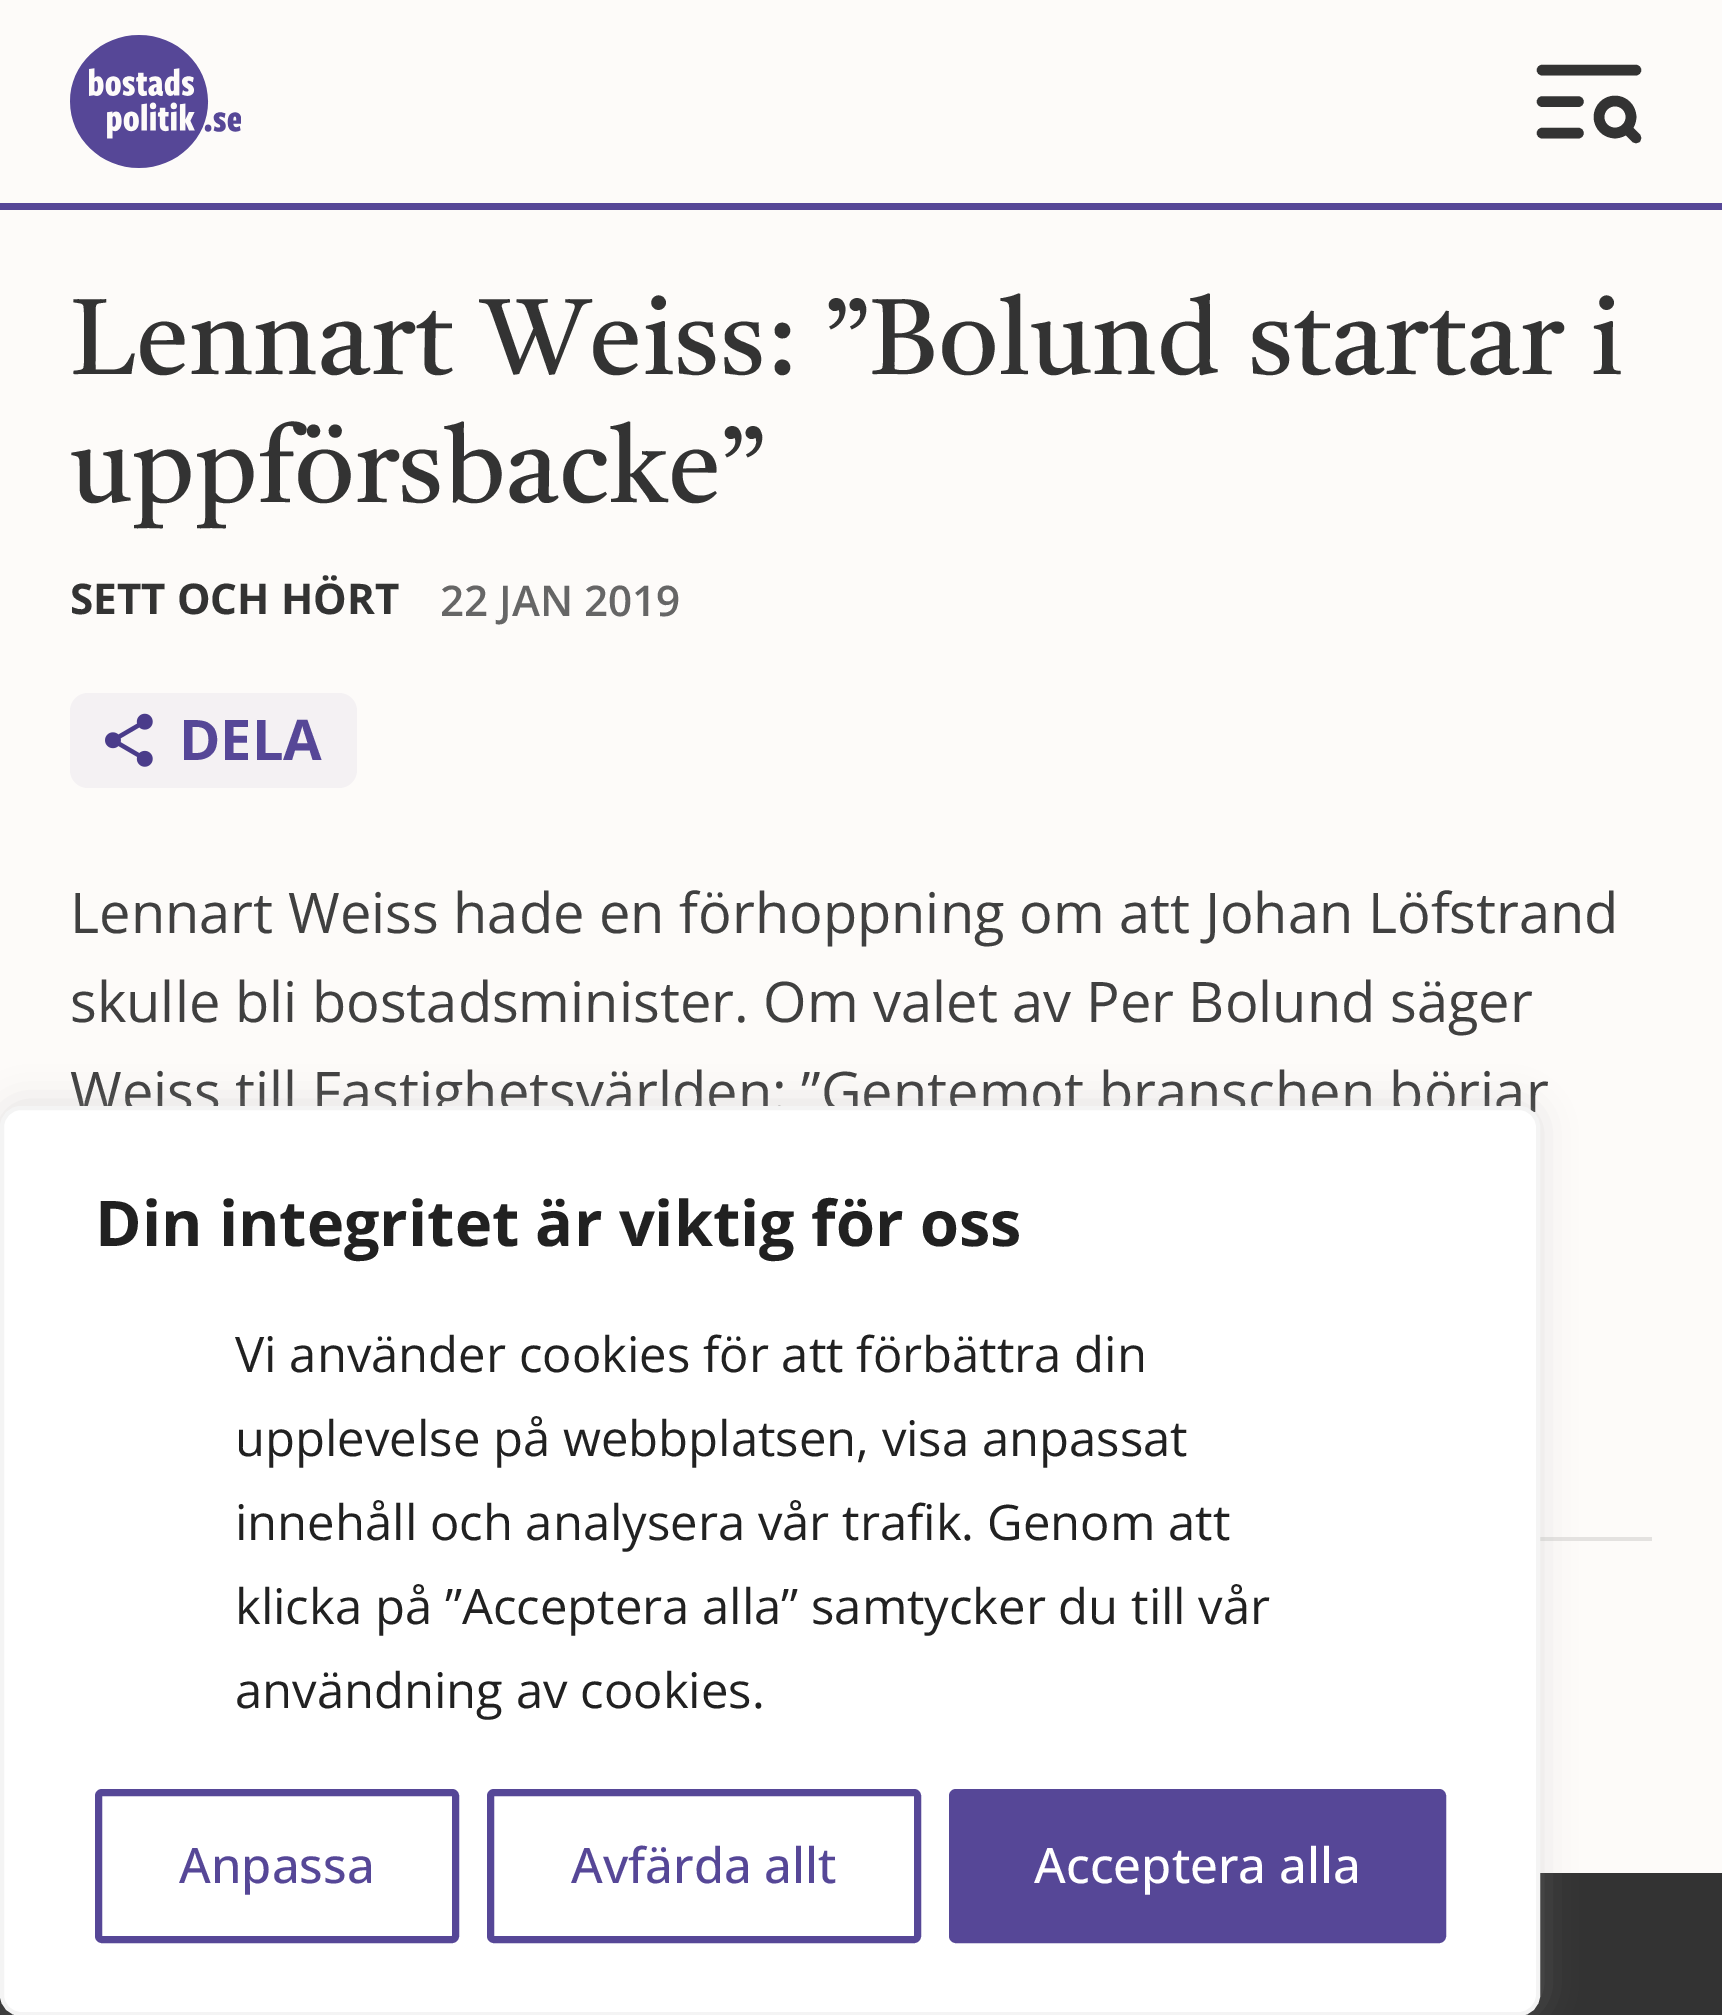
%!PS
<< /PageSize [1722 2015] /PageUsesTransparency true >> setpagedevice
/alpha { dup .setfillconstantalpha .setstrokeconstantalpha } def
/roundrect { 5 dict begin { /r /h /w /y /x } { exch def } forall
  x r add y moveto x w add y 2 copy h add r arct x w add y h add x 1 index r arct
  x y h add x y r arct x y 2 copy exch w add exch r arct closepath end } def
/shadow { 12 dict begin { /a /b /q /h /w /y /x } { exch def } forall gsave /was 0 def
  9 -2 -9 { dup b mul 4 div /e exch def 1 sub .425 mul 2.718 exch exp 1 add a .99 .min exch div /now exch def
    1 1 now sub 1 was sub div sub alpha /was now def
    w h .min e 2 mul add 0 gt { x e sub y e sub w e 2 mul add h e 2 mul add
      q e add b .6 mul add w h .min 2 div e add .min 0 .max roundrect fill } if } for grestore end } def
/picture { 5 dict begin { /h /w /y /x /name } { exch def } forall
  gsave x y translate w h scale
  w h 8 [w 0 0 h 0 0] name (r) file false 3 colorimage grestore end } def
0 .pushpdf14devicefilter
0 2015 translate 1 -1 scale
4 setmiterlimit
0.992 0.984 0.976 setrgbcolor
0 0 1722 2015 rectfill
0.337 0.278 0.592 setrgbcolor
0 203 1722 7 rectfill
(img1.rgb) 70 35 171 133 picture
0.2 setgray
10.5 setlinewidth
1 setlinecap
1 setlinejoin
newpath 1636 70 moveto 1542 70 lineto stroke
newpath 1578.5 101.5 moveto 1542 101.5 lineto 1578.5 133 moveto 1542 133 lineto stroke
0 setlinecap
0 setlinejoin
newpath 1615 117 16 0 360 arc closepath stroke
1 setlinecap
1 setlinejoin
newpath 1636 138 moveto 1626.5 128.5 lineto stroke
/TiroTelugu-Regular [107 0 0 -107 0 0] selectfont
70 374 moveto (Lennart Weiss: ”Bolund startar) show
1591 374 moveto (i) show
70 502 moveto (uppförsbacke”) show
/OpenSans-Bold [42.25 0 0 -42.25 0 0] selectfont
70 614 moveto (SETT OCH HÖRT) show
/OpenSans-SemiBold [42.25 0 0 -42.25 0 0] selectfont
0.4 setgray
440 616 moveto (22 JAN 2019) show
0.957 0.945 0.953 setrgbcolor
70 693 287 95 18 roundrect fill
(img2.rgb) 105 713 48 54 picture
/OpenSans-Bold [56 0 0 -56 0 0] selectfont
0.337 0.278 0.592 setrgbcolor
179 760 moveto (DELA) show
0.894 0.886 0.878 setrgbcolor
1540 1537 112 4 rectfill
/OpenSans-Regular [56 0 0 -56 0 0] selectfont
0.251 setgray
70 933 moveto (Lennart Weiss hade en förhoppning om att Johan Löfstrand) show
70 1022 moveto (skulle bli bostadsminister. Om valet av Per Bolund säger) show
70 1112 moveto (Weiss till Fastighetsvärlden: ”Gentemot branschen börjar) show
0.2 setgray
0 1873 1722 142 rectfill
0.675 0.671 0.671 setrgbcolor
0 1103 1540 910 21 17.5 0.3 shadow
1 setgray
2 1108 1536 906 19 roundrect gsave fill grestore
0.957 setgray
4 setlinewidth
0 setlinecap
0 setlinejoin
stroke
/OpenSans-Bold [63 0 0 -63 0 0] selectfont
0.129 setgray
95 1246 moveto (Din integritet är viktig för oss) show
/OpenSans-Regular [49 0 0 -49 0 0] selectfont
235 1372 moveto (Vi använder cookies för att förbättra din) show
235 1456 moveto (upplevelse på webbplatsen, visa anpassat) show
235 1540 moveto (innehåll och analysera vår trafik. Genom att) show
235 1624 moveto (klicka på ”Acceptera alla” samtycker du till vår) show
235 1708 moveto (användning av cookies.) show
0.337 0.278 0.592 setrgbcolor
7 setlinewidth
98.5 1792.5 357 147 3.5 roundrect stroke
/OpenSans-Medium [49 0 0 -49 0 0] selectfont
179 1883 moveto (Anpassa) show
490.5 1792.5 427 147 3.5 roundrect stroke
571 1883 moveto (Avfärda allt) show
952.5 1792.5 490 147 3.5 roundrect gsave fill grestore
stroke
1 setgray
1034 1883 moveto (Acceptera alla) show
.poppdf14devicefilter showpage
